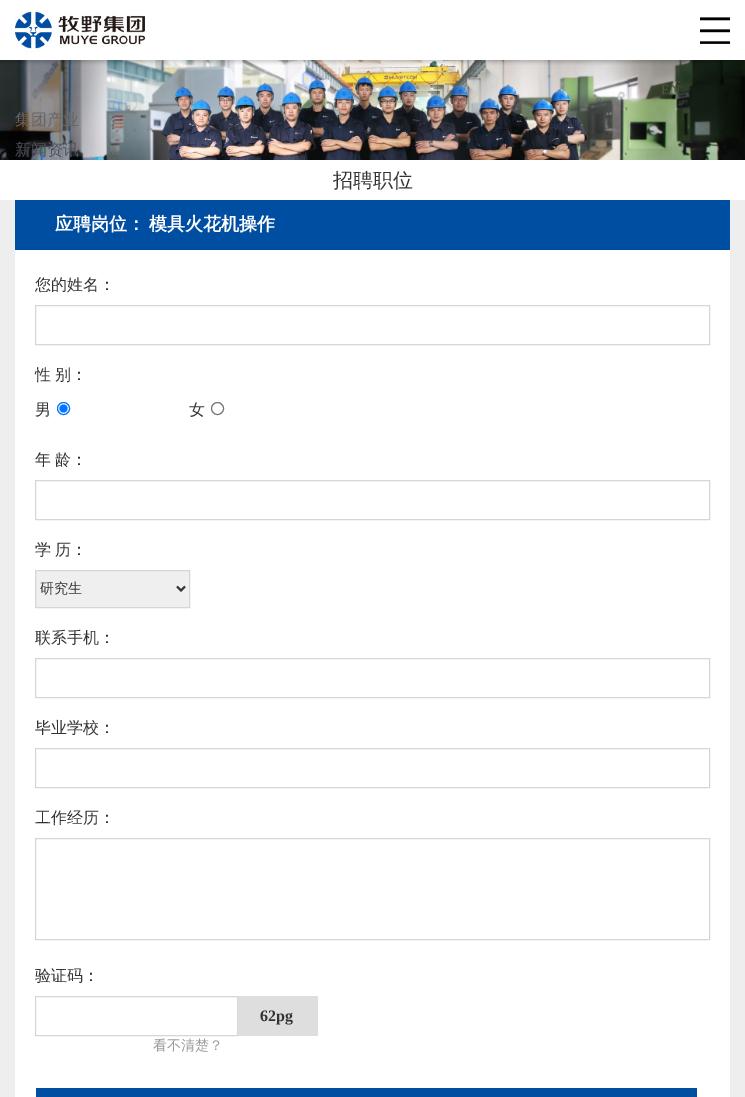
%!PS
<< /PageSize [745 1097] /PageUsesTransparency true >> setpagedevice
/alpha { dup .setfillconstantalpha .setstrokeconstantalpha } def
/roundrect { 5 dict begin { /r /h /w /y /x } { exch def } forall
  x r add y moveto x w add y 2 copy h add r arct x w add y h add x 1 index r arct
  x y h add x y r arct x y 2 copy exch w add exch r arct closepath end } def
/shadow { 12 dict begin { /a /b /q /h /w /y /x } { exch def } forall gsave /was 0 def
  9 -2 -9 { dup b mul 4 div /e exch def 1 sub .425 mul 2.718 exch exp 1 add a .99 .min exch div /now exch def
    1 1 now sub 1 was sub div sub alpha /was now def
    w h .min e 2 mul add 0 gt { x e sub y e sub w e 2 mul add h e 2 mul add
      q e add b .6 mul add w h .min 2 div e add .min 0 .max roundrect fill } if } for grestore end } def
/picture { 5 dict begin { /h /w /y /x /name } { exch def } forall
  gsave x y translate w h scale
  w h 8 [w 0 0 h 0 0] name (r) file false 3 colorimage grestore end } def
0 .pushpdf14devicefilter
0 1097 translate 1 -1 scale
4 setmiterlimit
1 setgray
0 0 745 1097 rectfill
(img1.rgb) 0 60 745 100 picture
gsave
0 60 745 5 rectclip
0 setgray
0 2 745 60 0 2 0.2 shadow
grestore
(img2.rgb) 15 11 130 41 picture
(img3.rgb) 700 17 30 27 picture
/LiberationSerif-Regular [14 0 0 -14 0 0] selectfont
0.29 0.333 0.251 setrgbcolor
661 94 moveto (EN) show
/WenQuanYiZenHei-Medium [16 0 0 -16 0 0] selectfont
0.412 0.4 0.396 setrgbcolor
15 125 moveto (集团产业) show
0.294 0.314 0.341 setrgbcolor
15 155 moveto (新闻资讯) show
/WenQuanYiZenHei-Medium [20 0 0 -20 0 0] selectfont
0.2 setgray
333 187 moveto (招聘职位) show
0.933 setgray
0 200 745 897 rectfill
0 0.306 0.635 setrgbcolor
15 200 715 50 rectfill
/WenQuanYiZenHei-Bold [18 0 0 -18 0 0] selectfont
1 setgray
55 230 moveto -1 0 32 (应聘岗位： 模具火花机操作) widthshow
15 250 715 847 rectfill
/WenQuanYiZenHei-Medium [16 0 0 -16 0 0] selectfont
0.2 setgray
35 290 moveto (您的姓名：) show
0.839 setgray
35.5 305.5 674 39 rectstroke
0.2 setgray
35 380 moveto -1 0 32 (性 别：) widthshow
35 415 moveto (男) show
0 0.459 1 setrgbcolor
newpath 63.5 408.5 6 0 360 arc closepath stroke
newpath 63.5 408.5 4 0 360 arc closepath fill
0.2 setgray
189 415 moveto (女) show
0.463 setgray
newpath 217.5 408.5 6 0 360 arc closepath stroke
0.2 setgray
35 465 moveto -1 0 32 (年 龄：) widthshow
0.839 setgray
35.5 480.5 674 39 rectstroke
0.2 setgray
35 555 moveto -1 0 32 (学 历：) widthshow
0.937 setgray
newpath 35.5 570.5 moveto 189.5 570.5 lineto 189.5 607.5 lineto 35.5 607.5 lineto closepath gsave fill grestore
0.839 setgray
stroke
0.2 setgray
2 setlinewidth
newpath 177 586.5 moveto 181 590.5 lineto 185 586.5 lineto stroke
/WenQuanYiZenHei-Medium [14 0 0 -14 0 0] selectfont
40 593 moveto (研究生) show
/WenQuanYiZenHei-Medium [16 0 0 -16 0 0] selectfont
35 643 moveto (联系手机：) show
0.839 setgray
1 setlinewidth
35.5 658.5 674 39 rectstroke
0.2 setgray
35 733 moveto (毕业学校：) show
0.839 setgray
35.5 748.5 674 39 rectstroke
0.2 setgray
35 823 moveto (工作经历：) show
0.839 setgray
35.5 838.5 674 101 rectstroke
0.2 setgray
35 981 moveto (验证码：) show
0.839 setgray
35.5 996.5 202 39 rectstroke
0.871 setgray
238 996 80 40 rectfill
/LiberationSerif-Bold [16 0 0 -16 0 0] selectfont
0.2 setgray
260 1021 moveto (62pg) show
/WenQuanYiZenHei-Medium [14 0 0 -14 0 0] selectfont
0.6 setgray
153 1050 moveto (看不清楚？) show
0 0.306 0.635 setrgbcolor
36 1088 661 9 rectfill
.poppdf14devicefilter showpage
